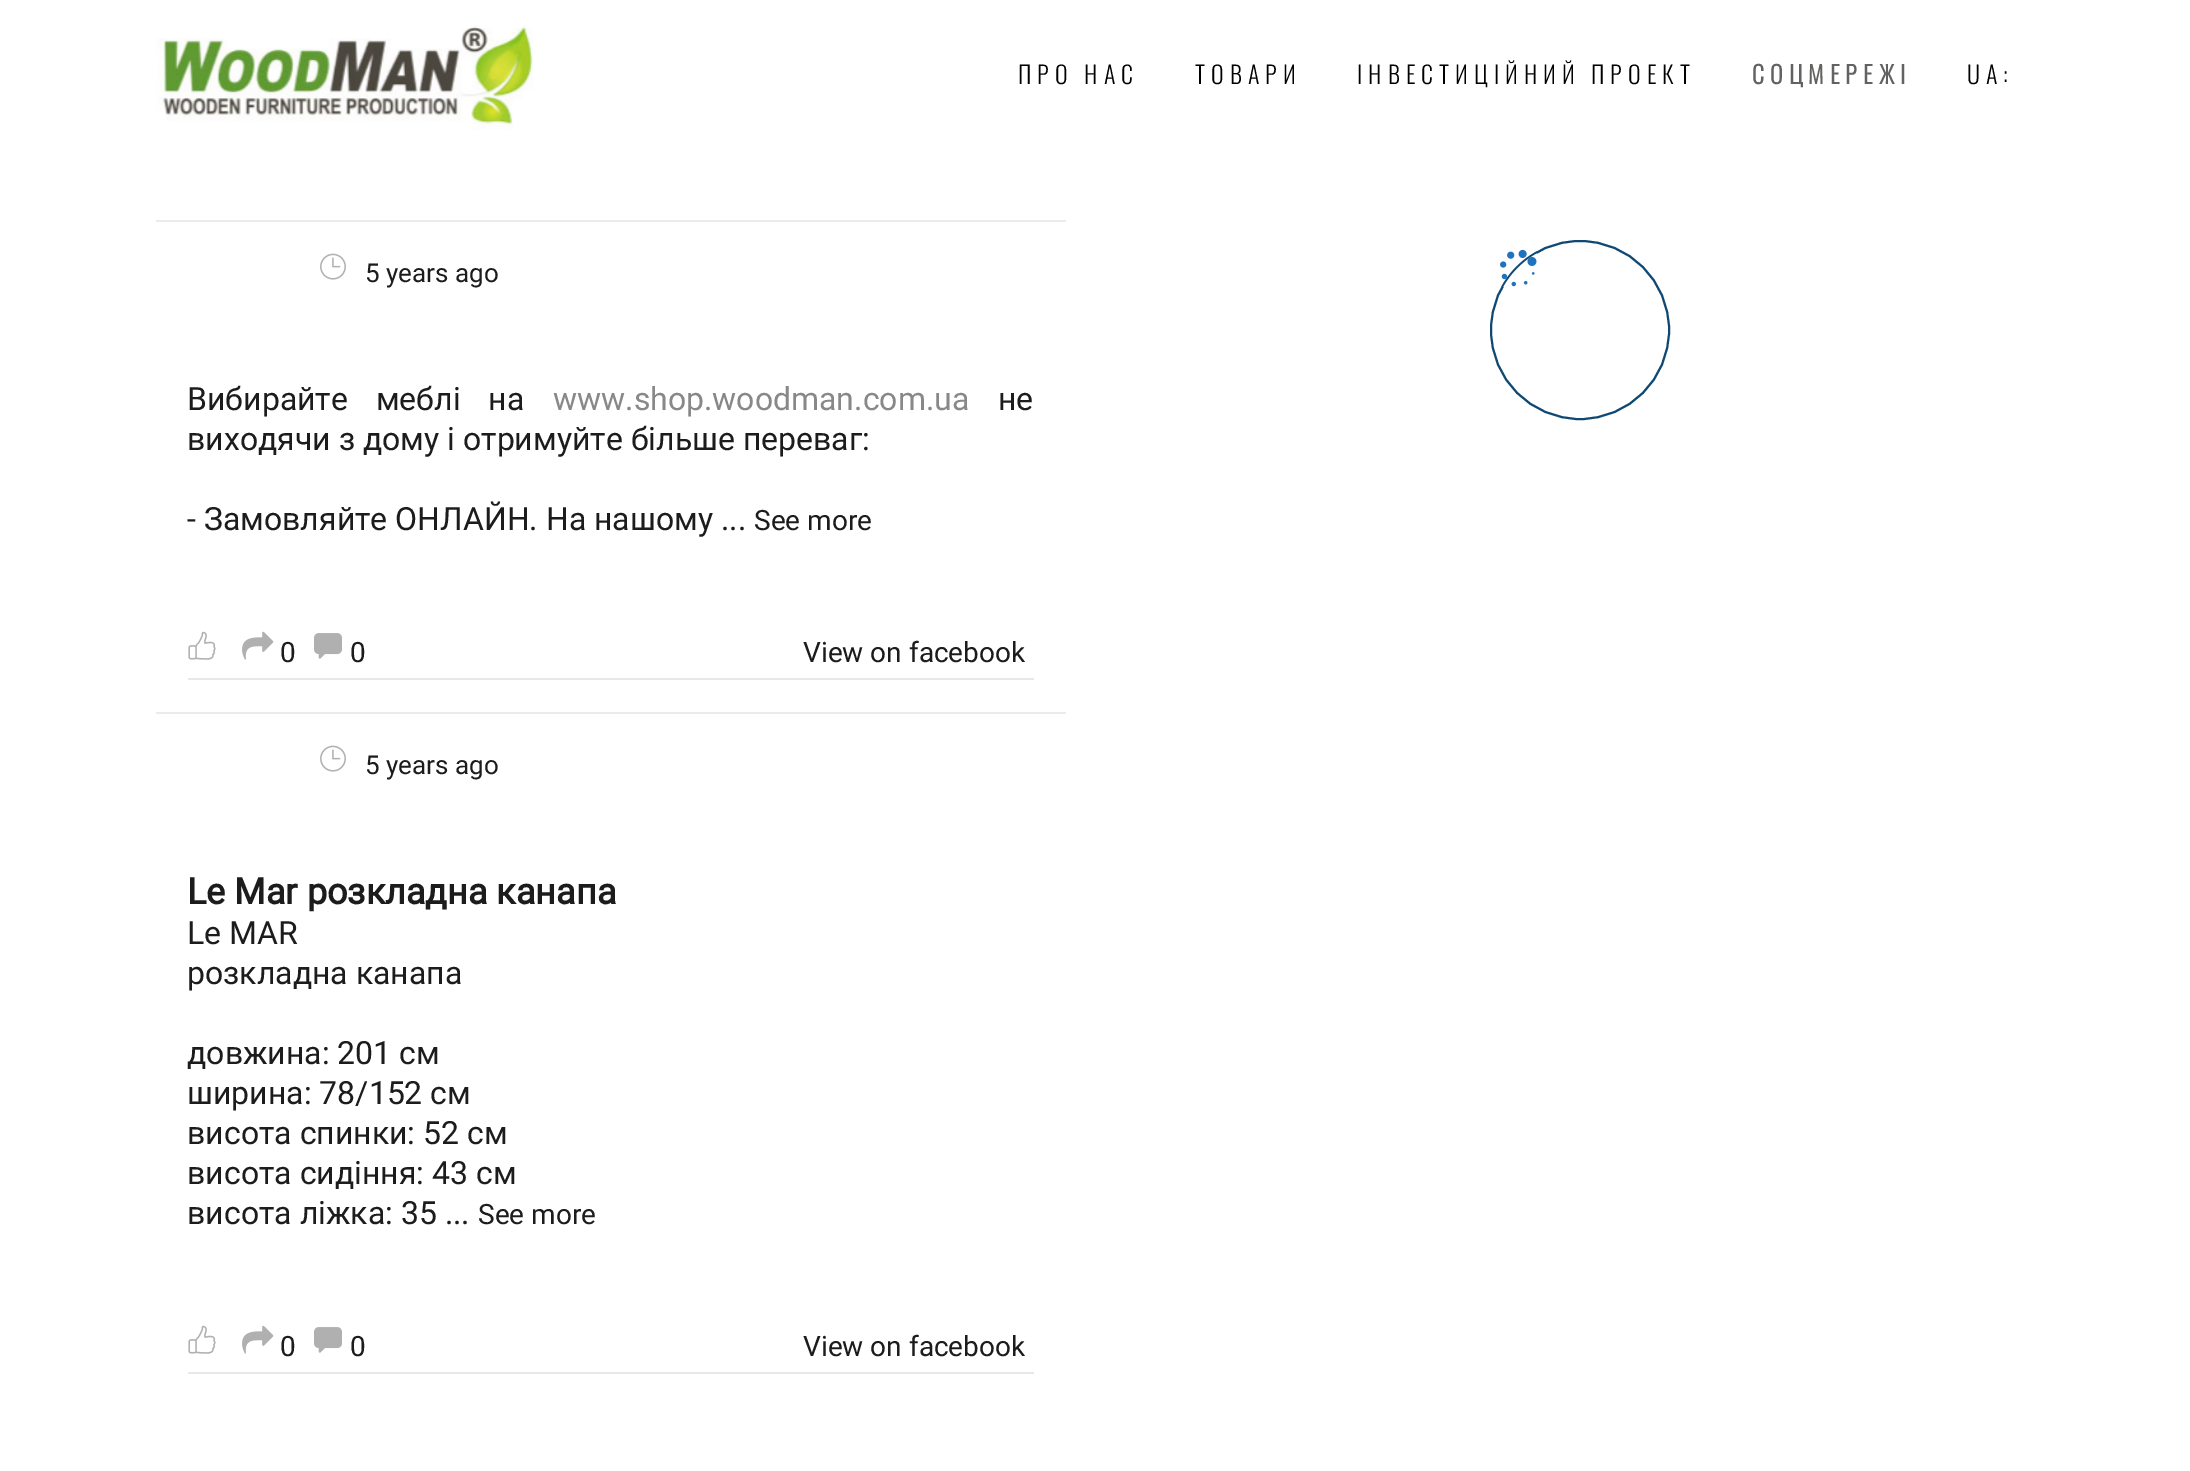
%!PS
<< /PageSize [2190 1471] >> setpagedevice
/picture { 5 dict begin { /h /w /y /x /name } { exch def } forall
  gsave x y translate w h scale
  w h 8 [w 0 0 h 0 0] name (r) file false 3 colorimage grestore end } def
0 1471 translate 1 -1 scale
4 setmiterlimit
1 setgray
0 0 2190 1471 rectfill
(img1.rgb) 156 25 377 105 picture
/Oswald-Light [24 0 0 -24 0 0] selectfont
0 setgray
1018 84 moveto 6 0 (ПРО НАС) ashow
1195 84 moveto 6 0 (ТОВАРИ) ashow
1357 84 moveto 6 0 (ІНВЕСТИЦІЙНИЙ ПРОЕКТ) ashow
/Oswald-Bold [24 0 0 -24 0 0] selectfont
0.384 0.388 0.38 setrgbcolor
1752 84 moveto 6 0 (СОЦМЕРЕЖІ) ashow
/Oswald-Light [24 0 0 -24 0 0] selectfont
0 setgray
1967 84 moveto 6 0 (UA:) ashow
0.922 setgray
156 220 910 2 rectfill
(img2.rgb) 320 253 26 27 picture
/Roboto-Regular [26 0 0 -26 0 0] selectfont
0.11 setgray
365 282 moveto (5 years ago) show
/Roboto-Regular [32 0 0 -32 0 0] selectfont
187 410 moveto 20 0 32 (Вибирайте меблі на) widthshow
0.533 setgray
553 410 moveto (www.shop.woodman.com.ua) show
0.11 setgray
998 410 moveto (не) show
187 450 moveto (виходячи з дому і отримуйте більше переваг:) show
187 530 moveto (- Замовляйте ОНЛАЙН. На нашому ...) show
/Roboto-Regular [28 0 0 -28 0 0] selectfont
754 530 moveto (See more) show
0.91 setgray
188 678 846 2 rectfill
(img3.rgb) 188 631 28 29 picture
(img4.rgb) 242 631 32 29 picture
0.11 setgray
280 662 moveto (0) show
(img5.rgb) 314 633 28 26 picture
350 662 moveto (0) show
803 662 moveto (View on facebook) show
0.922 setgray
156 712 910 2 rectfill
(img2.rgb) 320 745 26 27 picture
/Roboto-Regular [26 0 0 -26 0 0] selectfont
0.11 setgray
365 774 moveto (5 years ago) show
/Roboto-Bold [36 0 0 -36 0 0] selectfont
187 904 moveto (Le Mar розкладна канапа) show
/Roboto-Regular [32 0 0 -32 0 0] selectfont
187 944 moveto (Le MAR) show
187 984 moveto (розкладна канапа) show
187 1064 moveto (довжина: 201 см) show
187 1104 moveto (ширина: 78/152 см) show
187 1144 moveto (висота спинки: 52 см) show
187 1184 moveto (висота сидіння: 43 см) show
187 1224 moveto (висота ліжка: 35 ...) show
/Roboto-Regular [28 0 0 -28 0 0] selectfont
478 1224 moveto (See more) show
0.91 setgray
188 1372 846 2 rectfill
(img3.rgb) 188 1325 28 29 picture
(img4.rgb) 242 1325 32 29 picture
0.11 setgray
280 1356 moveto (0) show
(img5.rgb) 314 1327 28 26 picture
350 1356 moveto (0) show
803 1356 moveto (View on facebook) show
0.059 0.286 0.451 setrgbcolor
2 setlinewidth
newpath 1580 330 89 0 360 arc closepath stroke
(img6.rgb) 1500 249 37 38 picture
showpage
